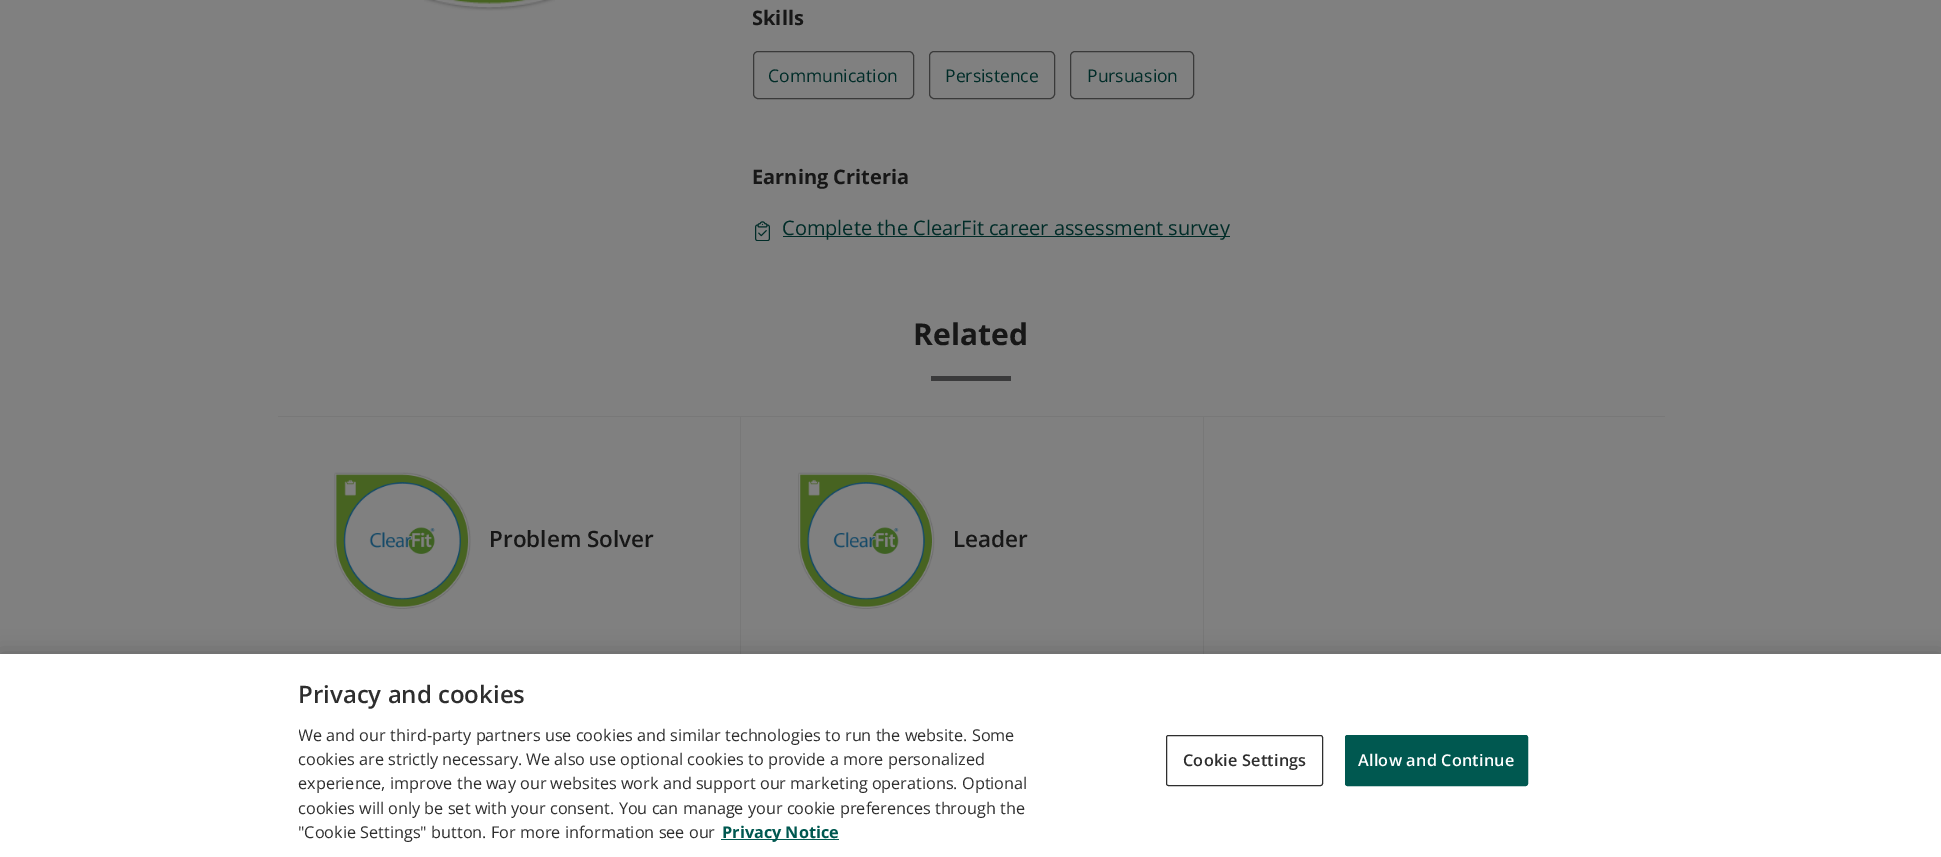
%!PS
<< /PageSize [1941 857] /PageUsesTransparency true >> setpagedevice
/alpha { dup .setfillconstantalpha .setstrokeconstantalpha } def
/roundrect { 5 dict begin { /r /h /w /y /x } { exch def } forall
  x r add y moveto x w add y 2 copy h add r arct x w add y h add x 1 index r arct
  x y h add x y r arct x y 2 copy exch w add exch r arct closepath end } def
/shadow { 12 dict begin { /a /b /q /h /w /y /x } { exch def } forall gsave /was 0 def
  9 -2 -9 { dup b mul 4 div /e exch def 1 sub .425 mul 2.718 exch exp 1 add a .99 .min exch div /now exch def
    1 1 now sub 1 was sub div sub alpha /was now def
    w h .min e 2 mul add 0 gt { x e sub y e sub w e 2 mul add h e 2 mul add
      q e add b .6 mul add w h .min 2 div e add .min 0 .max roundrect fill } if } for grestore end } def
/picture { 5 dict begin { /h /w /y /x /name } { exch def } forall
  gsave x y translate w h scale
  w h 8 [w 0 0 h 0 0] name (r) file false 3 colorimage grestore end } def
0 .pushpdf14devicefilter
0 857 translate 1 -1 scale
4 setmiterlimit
0.502 setgray
0 0 1941 857 rectfill
(img1.rgb) 424 0 131 11 picture
/OpenSans-Bold [20 0 0 -20 0 0] selectfont
0.09 setgray
752 25 moveto (Skills) show
0.227 setgray
753.5 51.5 160 47 4.5 roundrect stroke
/OpenSans-Regular [17.5 0 0 -17.5 0 0] selectfont
0 0.173 0.157 setrgbcolor
768 82 moveto (Communication) show
0.227 setgray
929.5 51.5 125 47 4.5 roundrect stroke
0 0.173 0.157 setrgbcolor
945 82 moveto (Persistence) show
0.227 setgray
1070.5 51.5 123 47 4.5 roundrect stroke
0 0.173 0.157 setrgbcolor
1087 82 moveto (Pursuasion) show
/OpenSans-Bold [20 0 0 -20 0 0] selectfont
0.09 setgray
752 184 moveto (Earning Criteria) show
(img2.rgb) 755 221 15 20 picture
0 0.173 0.157 setrgbcolor
783 236 447 1 rectfill
/OpenSans-Regular [20 0 0 -20 0 0] selectfont
782 235 moveto (Complete the ClearFit career assessment survey) show
/OpenSans-Bold [30 0 0 -30 0 0] selectfont
0.09 setgray
913 345 moveto (Related) show
0.227 0.227 0.231 setrgbcolor
931 376 80 5 rectfill
0.471 setgray
278 416 1387 1 rectfill
(img3.rgb) 334 472 137 137 picture
/OpenSans-SemiBold [22.5 0 0 -22.5 0 0] selectfont
0.09 setgray
489 547 moveto (Problem Solver) show
0.471 setgray
740 416 1 238 rectfill
(img4.rgb) 798 472 137 137 picture
0.09 setgray
953 547 moveto (Leader) show
0.471 setgray
1203 416 1 238 rectfill
0 setgray
0 654 1941 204 0 11 0.2 shadow
1 setgray
0 654 1941 203 rectfill
/OpenSans-SemiBold [24 0 0 -24 0 0] selectfont
0.18 setgray
298 703 moveto (Privacy and cookies) show
gsave
299 679 744 166 rectclip
/OpenSans-Regular [16.25 0 0 -16.25 0 0] selectfont
298 741 moveto (We and our third-party partners use cookies and similar technologies to run the website. Some) show
grestore
/OpenSans-Regular [16.25 0 0 -16.25 0 0] selectfont
298 765 moveto (cookies are strictly necessary. We also use optional cookies to provide a more personalized) show
298 789 moveto (experience, improve the way our websites work and support our marketing operations. Optional) show
298 814 moveto (cookies will only be set with your consent. You can manage your cookie preferences through the) show
298 838 moveto ("Cookie Settings" button. For more information see our) show
0 0.345 0.314 setrgbcolor
721 839 118 1 rectfill
/OpenSans-Bold [16.25 0 0 -16.25 0 0] selectfont
722 838 moveto (Privacy Notice) show
0.18 setgray
1166.5 735.5 156 50 2 roundrect stroke
/OpenSans-SemiBold [16.25 0 0 -16.25 0 0] selectfont
1183 766 moveto 0.2 0 (Cookie Settings) ashow
0 0.345 0.314 setrgbcolor
1345.5 735.5 182 50 2 roundrect gsave fill grestore
stroke
0.996 setgray
1358 766 moveto 0.2 0 (Allow and Continue) ashow
.poppdf14devicefilter showpage
